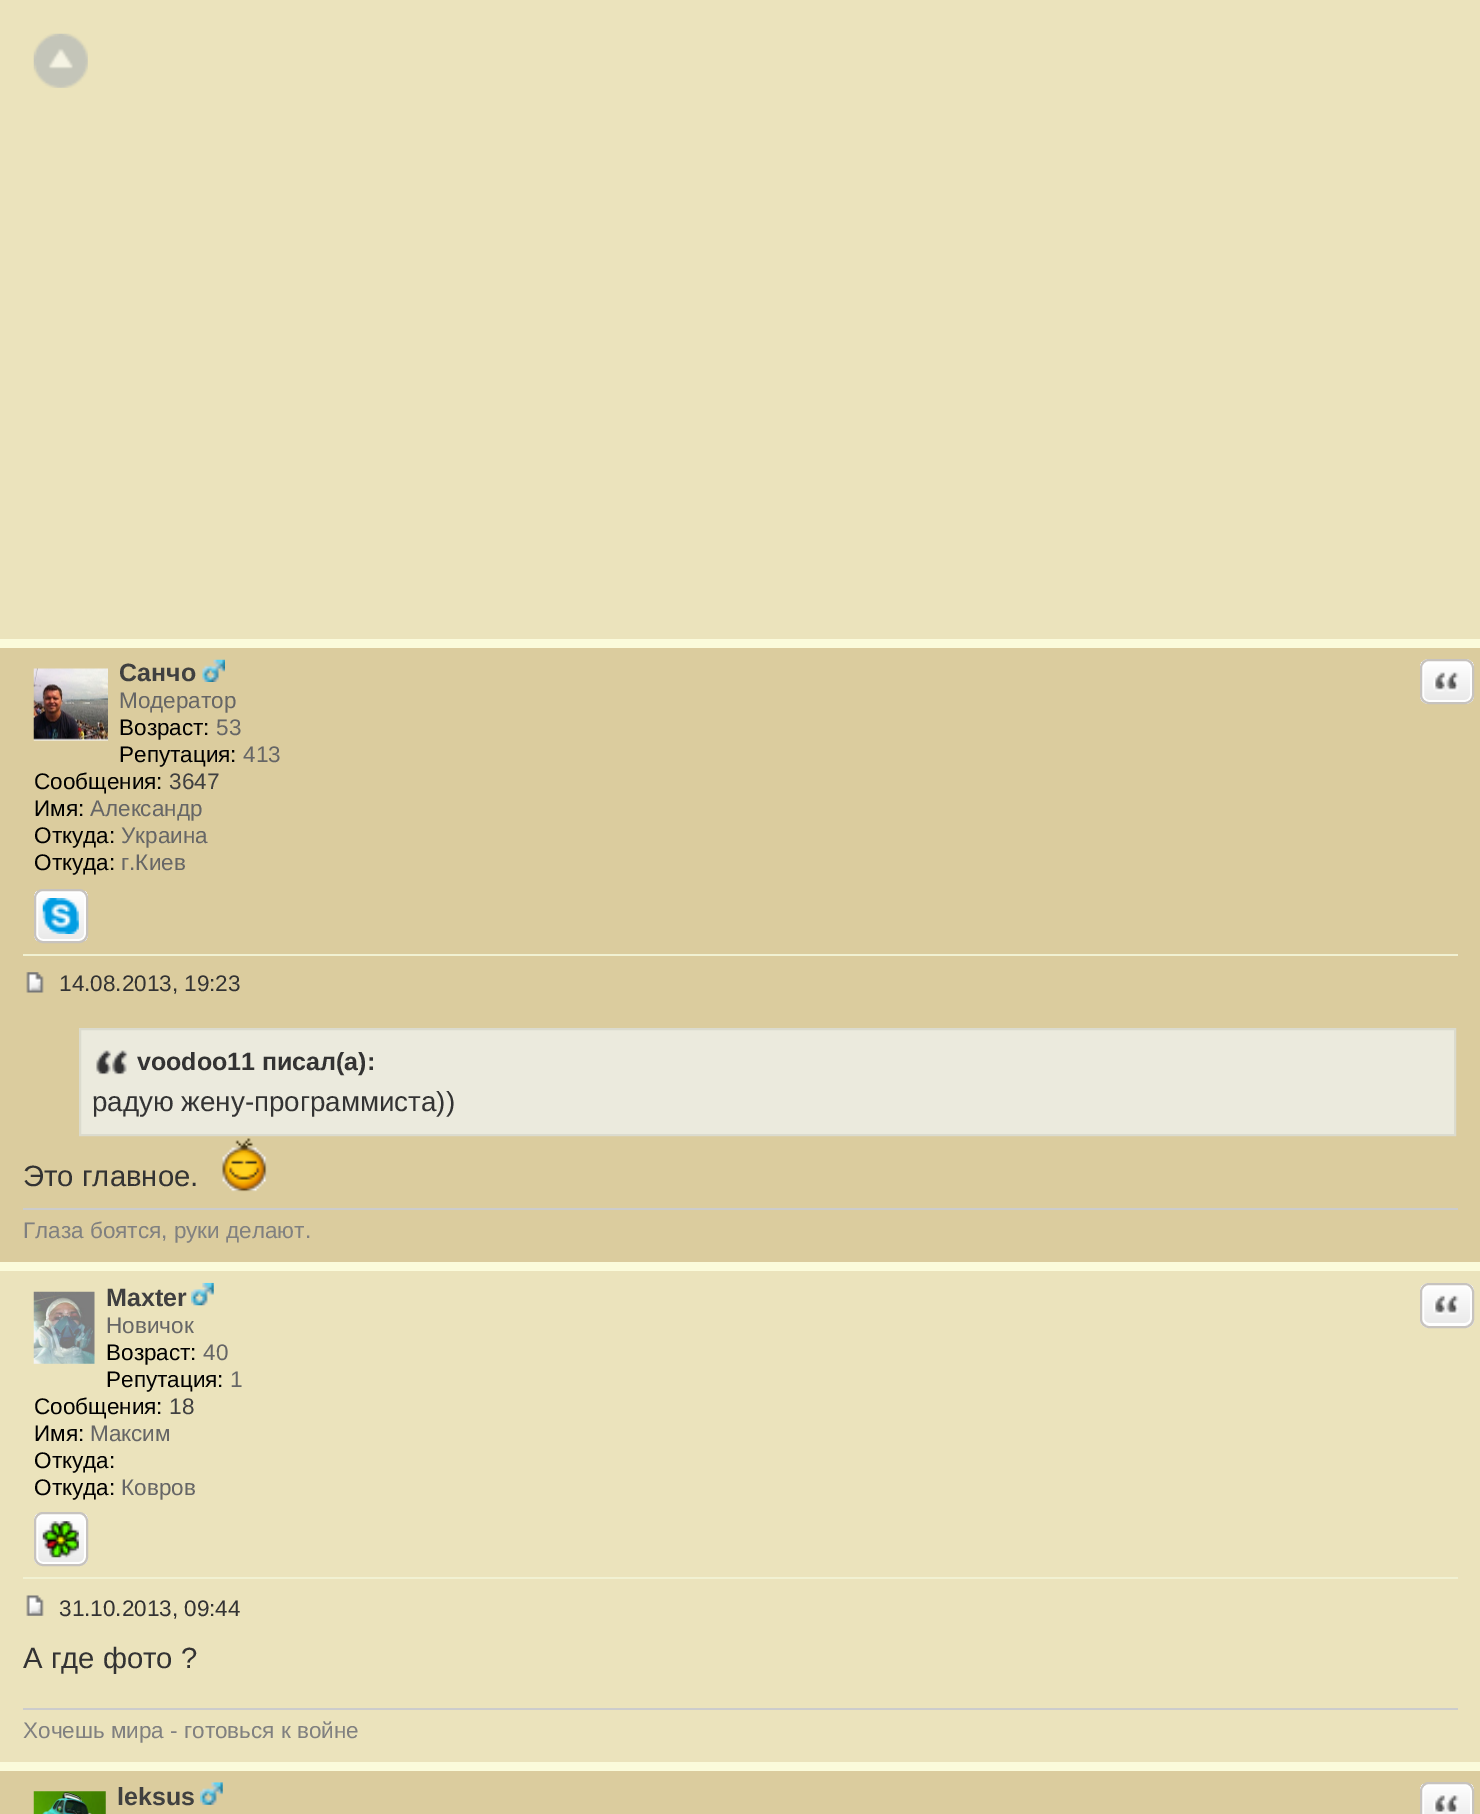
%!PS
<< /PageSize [1480 1814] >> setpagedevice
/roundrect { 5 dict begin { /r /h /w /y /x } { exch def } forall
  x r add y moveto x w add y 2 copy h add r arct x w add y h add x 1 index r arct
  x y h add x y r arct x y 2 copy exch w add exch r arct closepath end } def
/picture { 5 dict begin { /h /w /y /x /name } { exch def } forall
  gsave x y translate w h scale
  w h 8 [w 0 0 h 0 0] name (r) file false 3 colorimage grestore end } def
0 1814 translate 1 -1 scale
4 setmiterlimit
0.984 0.984 0.859 setrgbcolor
0 0 1480 1814 rectfill
0.922 0.89 0.737 setrgbcolor
0 0 1480 639 rectfill
(img1.rgb) 33 33 55 55 picture
0.859 0.8 0.62 setrgbcolor
0 648 1480 614 rectfill
0.945 0.945 0.824 setrgbcolor
23 954 1435 2 rectfill
(img2.rgb) 33 668 75 73 picture
/LiberationSans-Bold [25 0 0 -25 0 0] selectfont
0.251 setgray
119 681 moveto (Санчо) show
(img3.rgb) 202 659 23 23 picture
/LiberationSans-Regular [22.5 0 0 -22.5 0 0] selectfont
0.4 setgray
119 708 moveto (Модератор) show
0 setgray
119 735 moveto (Возраст:) show
0.4 setgray
216 735 moveto (53) show
0 setgray
119 762 moveto (Репутация:) show
0.4 setgray
243 762 moveto (413) show
0 setgray
34 789 moveto (Сообщения:) show
0.251 setgray
169 789 moveto (3647) show
0 setgray
34 816 moveto (Имя:) show
0.4 setgray
90 816 moveto (Александр) show
0 setgray
34 843 moveto (Откуда:) show
0.4 setgray
121 843 moveto (Украина) show
0 setgray
34 870 moveto (Откуда:) show
0.4 setgray
121 870 moveto (г.Киев) show
gsave
34 889 54 54 9 roundrect clip newpath
gsave newpath 34 891 moveto 88 891 lineto 88 941 lineto 34 941 lineto closepath clip newpath
<< /ShadingType 2 /ColorSpace /DeviceRGB /Coords [61 891 61 941] /Extend [true true] /Function << /FunctionType 2 /Domain [0 1] /C0 [1 1 1] /C1 [0.914 0.914 0.914] /N 1 >> >> shfill grestore
grestore
1 setgray
2 setlinewidth
37 892 48 48 6 roundrect stroke
0.78 0.765 0.749 setrgbcolor
35 890 52 52 8 roundrect stroke
(img4.rgb) 42 898 37 36 picture
1 setgray
1420 659 54 45 9 roundrect fill
gsave
1420 659 54 45 9 roundrect clip newpath
gsave newpath 1420 662 moveto 1474 662 lineto 1474 702 lineto 1420 702 lineto closepath clip newpath
<< /ShadingType 2 /ColorSpace /DeviceRGB /Coords [1447 662 1447 702] /Extend [true true] /Function << /FunctionType 2 /Domain [0 1] /C0 [1 1 1] /C1 [0.914 0.914 0.914] /N 1 >> >> shfill grestore
grestore
1423 663 48 38 6 roundrect stroke
0.78 0.765 0.749 setrgbcolor
1421 660 52 43 8 roundrect stroke
(img5.rgb) 1433 672 26 20 picture
(img6.rgb) 26 972 18 21 picture
0.2 setgray
59 991 moveto (14.08.2013, 19:23) show
0.922 0.918 0.867 setrgbcolor
81 1030 1373 104 rectfill
(img7.rgb) 96 1050 32 25 picture
0.859 0.859 0.808 setrgbcolor
80 1029 1375 106 rectstroke
/LiberationSans-Bold [25 0 0 -25 0 0] selectfont
0.2 setgray
137 1070 moveto (voodoo11 писал\(а\):) show
/LiberationSans-Regular [27.75 0 0 -27.75 0 0] selectfont
92 1111 moveto (радую жену-программиста\)\)) show
/LiberationSans-Regular [29.25 0 0 -29.25 0 0] selectfont
23 1186 moveto (Это главное.) show
(img8.rgb) 222 1138 45 54 picture
0.8 setgray
23 1208 1435 2 rectfill
/LiberationSans-Regular [22.5 0 0 -22.5 0 0] selectfont
0.502 setgray
23 1238 moveto (Глаза боятся, руки делают.) show
0.922 0.89 0.737 setrgbcolor
0 1271 1480 491 rectfill
0.945 0.945 0.824 setrgbcolor
23 1577 1435 2 rectfill
(img9.rgb) 33 1291 62 73 picture
/LiberationSans-Bold [25 0 0 -25 0 0] selectfont
0.251 setgray
106 1306 moveto (Maxter) show
(img10.rgb) 191 1282 23 24 picture
/LiberationSans-Regular [22.5 0 0 -22.5 0 0] selectfont
0.4 setgray
106 1333 moveto (Новичок) show
0 setgray
106 1360 moveto (Возраст:) show
0.4 setgray
203 1360 moveto (40) show
0 setgray
106 1387 moveto (Репутация:) show
0.4 setgray
230 1387 moveto (1) show
0 setgray
34 1414 moveto (Сообщения:) show
0.251 setgray
169 1414 moveto (18) show
0 setgray
34 1441 moveto (Имя:) show
0.4 setgray
90 1441 moveto (Максим) show
0 setgray
34 1468 moveto (Откуда:) show
34 1495 moveto (Откуда:) show
0.4 setgray
121 1495 moveto (Ковров) show
gsave
34 1512 54 54 9 roundrect clip newpath
gsave newpath 34 1514 moveto 88 1514 lineto 88 1564 lineto 34 1564 lineto closepath clip newpath
<< /ShadingType 2 /ColorSpace /DeviceRGB /Coords [61 1514 61 1564] /Extend [true true] /Function << /FunctionType 2 /Domain [0 1] /C0 [1 1 1] /C1 [0.914 0.914 0.914] /N 1 >> >> shfill grestore
grestore
1 setgray
37 1515 48 48 6 roundrect stroke
0.78 0.765 0.749 setrgbcolor
35 1513 52 52 8 roundrect stroke
(img11.rgb) 42 1521 37 37 picture
1 setgray
1420 1283 54 45 9 roundrect fill
gsave
1420 1283 54 45 9 roundrect clip newpath
gsave newpath 1420 1285 moveto 1474 1285 lineto 1474 1325 lineto 1420 1325 lineto closepath clip newpath
<< /ShadingType 2 /ColorSpace /DeviceRGB /Coords [1447 1285 1447 1325] /Extend [true true] /Function << /FunctionType 2 /Domain [0 1] /C0 [1 1 1] /C1 [0.914 0.914 0.914] /N 1 >> >> shfill grestore
grestore
1423 1286 48 38 6 roundrect stroke
0.78 0.765 0.749 setrgbcolor
1421 1284 52 43 8 roundrect stroke
(img12.rgb) 1433 1295 26 20 picture
(img13.rgb) 26 1595 18 21 picture
0.2 setgray
59 1616 moveto (31.10.2013, 09:44) show
/LiberationSans-Regular [29.25 0 0 -29.25 0 0] selectfont
23 1668 moveto (А где фото ?) show
0.8 setgray
23 1708 1435 2 rectfill
/LiberationSans-Regular [22.5 0 0 -22.5 0 0] selectfont
0.502 setgray
23 1738 moveto (Хочешь мира - готовься к войне) show
0.859 0.8 0.62 setrgbcolor
0 1771 1480 43 rectfill
(img14.rgb) 33 1791 73 23 picture
/LiberationSans-Bold [25 0 0 -25 0 0] selectfont
0.251 setgray
117 1805 moveto (leksus) show
(img15.rgb) 200 1782 23 23 picture
gsave
1420 1782 54 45 9 roundrect clip newpath
gsave newpath 1420 1784 moveto 1474 1784 lineto 1474 1814 lineto 1420 1814 lineto closepath clip newpath
<< /ShadingType 2 /ColorSpace /DeviceRGB /Coords [1447 1784 1447 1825] /Extend [true true] /Function << /FunctionType 2 /Domain [0 1] /C0 [1 1 1] /C1 [0.914 0.914 0.914] /N 1 >> >> shfill grestore
grestore
1 setgray
1423 1785 48 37 6 roundrect stroke
0.78 0.765 0.749 setrgbcolor
1421 1783 52 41 8 roundrect stroke
(img16.rgb) 1433 1794 26 20 picture
showpage
